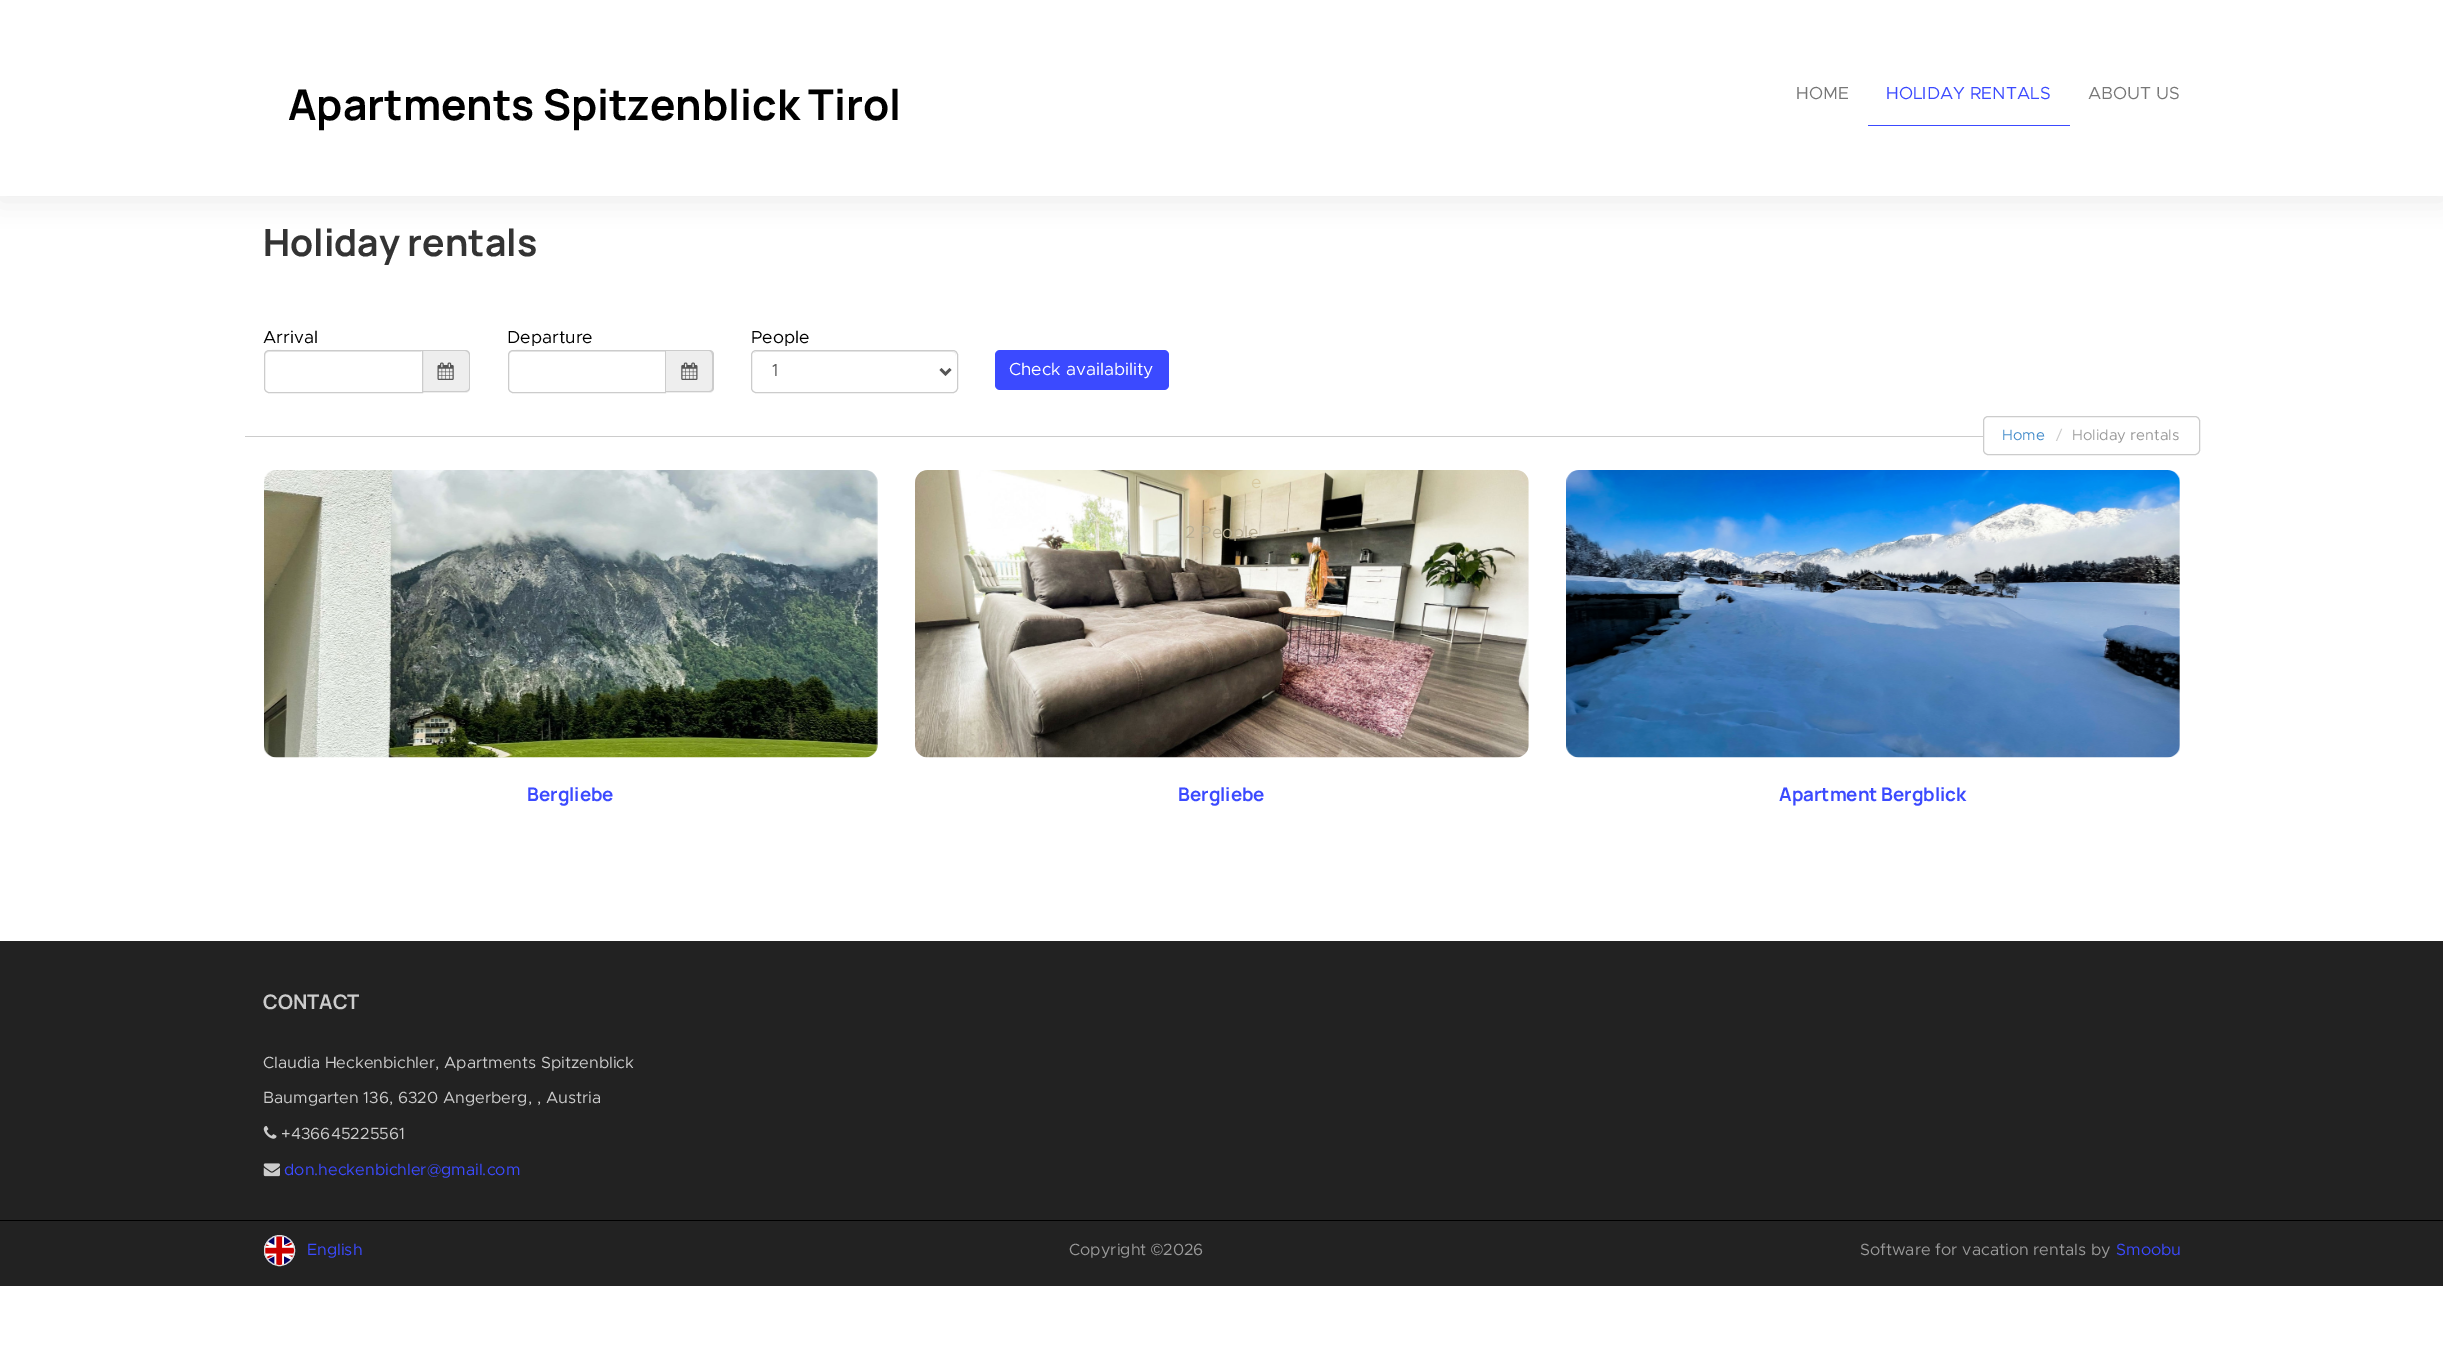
%!PS
<< /PageSize [2443 1346] /PageUsesTransparency true >> setpagedevice
/alpha { dup .setfillconstantalpha .setstrokeconstantalpha } def
/roundrect { 5 dict begin { /r /h /w /y /x } { exch def } forall
  x r add y moveto x w add y 2 copy h add r arct x w add y h add x 1 index r arct
  x y h add x y r arct x y 2 copy exch w add exch r arct closepath end } def
/shadow { 12 dict begin { /a /b /q /h /w /y /x } { exch def } forall gsave /was 0 def
  9 -2 -9 { dup b mul 4 div /e exch def 1 sub .425 mul 2.718 exch exp 1 add a .99 .min exch div /now exch def
    1 1 now sub 1 was sub div sub alpha /was now def
    w h .min e 2 mul add 0 gt { x e sub y e sub w e 2 mul add h e 2 mul add
      q e add b .6 mul add w h .min 2 div e add .min 0 .max roundrect fill } if } for grestore end } def
/picture { 5 dict begin { /h /w /y /x /name } { exch def } forall
  gsave x y translate w h scale
  w h 8 [w 0 0 h 0 0] name (r) file false 3 colorimage grestore end } def
0 .pushpdf14devicefilter
0 1346 translate 1 -1 scale
4 setmiterlimit
1 setgray
0 0 2443 1346 rectfill
gsave
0 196 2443 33 rectclip
0.914 setgray
0 4 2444 196 0 14 1 shadow
grestore
/Manrope-Bold [42.5 0 0 -42.5 0 0] selectfont
0 setgray
288 120 moveto (Apartments Spitzenblick Tirol) show
/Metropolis-Regular [17.5 0 0 -17.5 0 0] selectfont
0.467 setgray
1796 99 moveto (HOME) show
0.231 0.29 1 setrgbcolor
1868 125 202 1 rectfill
1886 99 moveto (HOLIDAY RENTALS) show
0.467 setgray
2088 99 moveto (ABOUT US) show
/Manrope-Bold [37.5 0 0 -37.5 0 0] selectfont
0.2 setgray
263 256 moveto (Holiday rentals) show
/Metropolis-Regular [17.5 0 0 -17.5 0 0] selectfont
0 setgray
263 343 moveto (Arrival) show
0.933 setgray
newpath 423 350 moveto 465 350 lineto 468 350 470 352 470 355 curveto 470 388 lineto 470 391 468 393 465 393 curveto 423 393 lineto closepath fill
0.8 setgray
newpath 422 350 moveto 465 350 lineto 468 350 470 352 470 355 curveto 470 388 lineto 470 390 468 392 465 392 curveto 422 392 lineto closepath 422 351 moveto 465 351 lineto 467 351 469 353 469 355 curveto 469 388 lineto 469 390 467 391 465 391 curveto 422 391 lineto closepath eofill
1 setgray
newpath 269 350 moveto 423 350 lineto 423 393 lineto 269 393 lineto 266 393 264 391 264 388 curveto 264 355 lineto 264 352 266 350 269 350 curveto closepath fill
0.925 setgray
newpath 269 352 moveto 421 352 lineto 421 351 lineto 294 351 lineto 284 351 265 346 265 356 curveto 265 354 267 352 269 352 curveto closepath fill
0.8 setgray
newpath 269 350.5 moveto 422.5 350.5 lineto 422.5 392.5 lineto 269 392.5 lineto 266.5 392.5 264.5 390.5 264.5 388 curveto 264.5 355 lineto 264.5 352.5 266.5 350.5 269 350.5 curveto closepath stroke
(img1.rgb) 437 362 17 18 picture
0 setgray
507 343 moveto (Departure) show
0.925 setgray
newpath 512 352 moveto 665 352 lineto 665 351 lineto 538 351 lineto 528 351 509 346 509 356 curveto 509 354 510 352 512 352 curveto closepath fill
0.8 setgray
newpath 513 350.5 moveto 665.5 350.5 lineto 665.5 392.5 lineto 513 392.5 lineto 510.5 392.5 508.5 390.5 508.5 388 curveto 508.5 355 lineto 508.5 352.5 510.5 350.5 513 350.5 curveto closepath stroke
0.933 setgray
newpath 666 350 moveto 709 350 lineto 712 350 714 352 714 355 curveto 714 388 lineto 714 391 712 393 709 393 curveto 666 393 lineto closepath fill
0.8 setgray
newpath 666 350 moveto 709 350 lineto 712 350 714 352 714 355 curveto 714 388 lineto 714 390 712 392 709 392 curveto 666 392 lineto closepath 666 351 moveto 709 351 lineto 711 351 712 353 712 355 curveto 712 388 lineto 712 390 711 391 709 391 curveto 666 391 lineto closepath eofill
(img2.rgb) 681 362 17 18 picture
0 setgray
751 343 moveto (People) show
0.925 setgray
newpath 756 352 moveto 952 352 lineto 955 352 956 354 956 356 curveto 956 355 lineto 956 353 954 351 952 351 curveto 757 351 lineto 756 351 754 352 754 353 curveto closepath fill
0.8 setgray
751.5 350.5 206 42 4.5 roundrect stroke
0.333 setgray
2.5 setlinewidth
newpath 940.5 369 moveto 945.5 374 lineto 950.5 369 lineto stroke
772 376 moveto (1) show
0.231 0.29 1 setrgbcolor
995 350 174 40 5 roundrect fill
1 setgray
1009 375 moveto (Check availability) show
0.8 setgray
245 436 1738 1 rectfill
1 setlinewidth
1983.5 416.5 216 38 4.5 roundrect stroke
/Metropolis-Regular [15 0 0 -15 0 0] selectfont
0.259 0.545 0.792 setrgbcolor
2002 440 moveto (Home) show
0.8 setgray
2056 440 moveto (/) show
0.6 setgray
2072 440 moveto (Holiday rentals) show
(img3.rgb) 264 470 614 288 picture
/Manrope-Bold [18.75 0 0 -18.75 0 0] selectfont
0.231 0.29 1 setrgbcolor
527 801 moveto (Bergliebe) show
(img4.rgb) 915 470 614 288 picture
/Metropolis-Regular [17.5 0 0 -17.5 0 0] selectfont
0.851 0.796 0.635 setrgbcolor
1251 488 moveto (e) show
0.725 0.686 0.584 setrgbcolor
1185 538 moveto (2 People) show
/Manrope-Bold [18.75 0 0 -18.75 0 0] selectfont
0.231 0.29 1 setrgbcolor
1178 801 moveto (Bergliebe) show
(img5.rgb) 1566 470 614 288 picture
1779 801 moveto (Apartment Bergblick) show
0.133 setgray
0 941 2443 345 rectfill
/Manrope-Bold [20 0 0 -20 0 0] selectfont
0.8 setgray
263 1009 moveto (CONTACT) show
/Metropolis-Regular [16.25 0 0 -16.25 0 0] selectfont
263 1068 moveto (Claudia Heckenbichler, Apartments Spitzenblick) show
263 1103 moveto (Baumgarten 136, 6320 Angerberg, , Austria) show
(img6.rgb) 263 1126 14 13 picture
281 1139 moveto (+436645225561) show
(img7.rgb) 263 1163 17 14 picture
0.231 0.29 1 setrgbcolor
284 1175 moveto (don.heckenbichler@gmail.com) show
0 setgray
0 1220 2443 1 rectfill
(img8.rgb) 264 1236 31 29 picture
0.867 setgray
newpath 279.5 1250.5 15 0 360 arc closepath stroke
0.231 0.29 1 setrgbcolor
307 1255 moveto (English) show
0.6 setgray
1069 1255 moveto (Copyright) show
/LiberationSans-Regular [16.25 0 0 -16.25 0 0] selectfont
1151 1255 moveto (©) show
/Metropolis-Regular [16.25 0 0 -16.25 0 0] selectfont
1163 1255 moveto (2026) show
1860 1255 moveto (Software for vacation rentals by) show
0.231 0.29 1 setrgbcolor
2116 1255 moveto (Smoobu) show
.poppdf14devicefilter showpage
